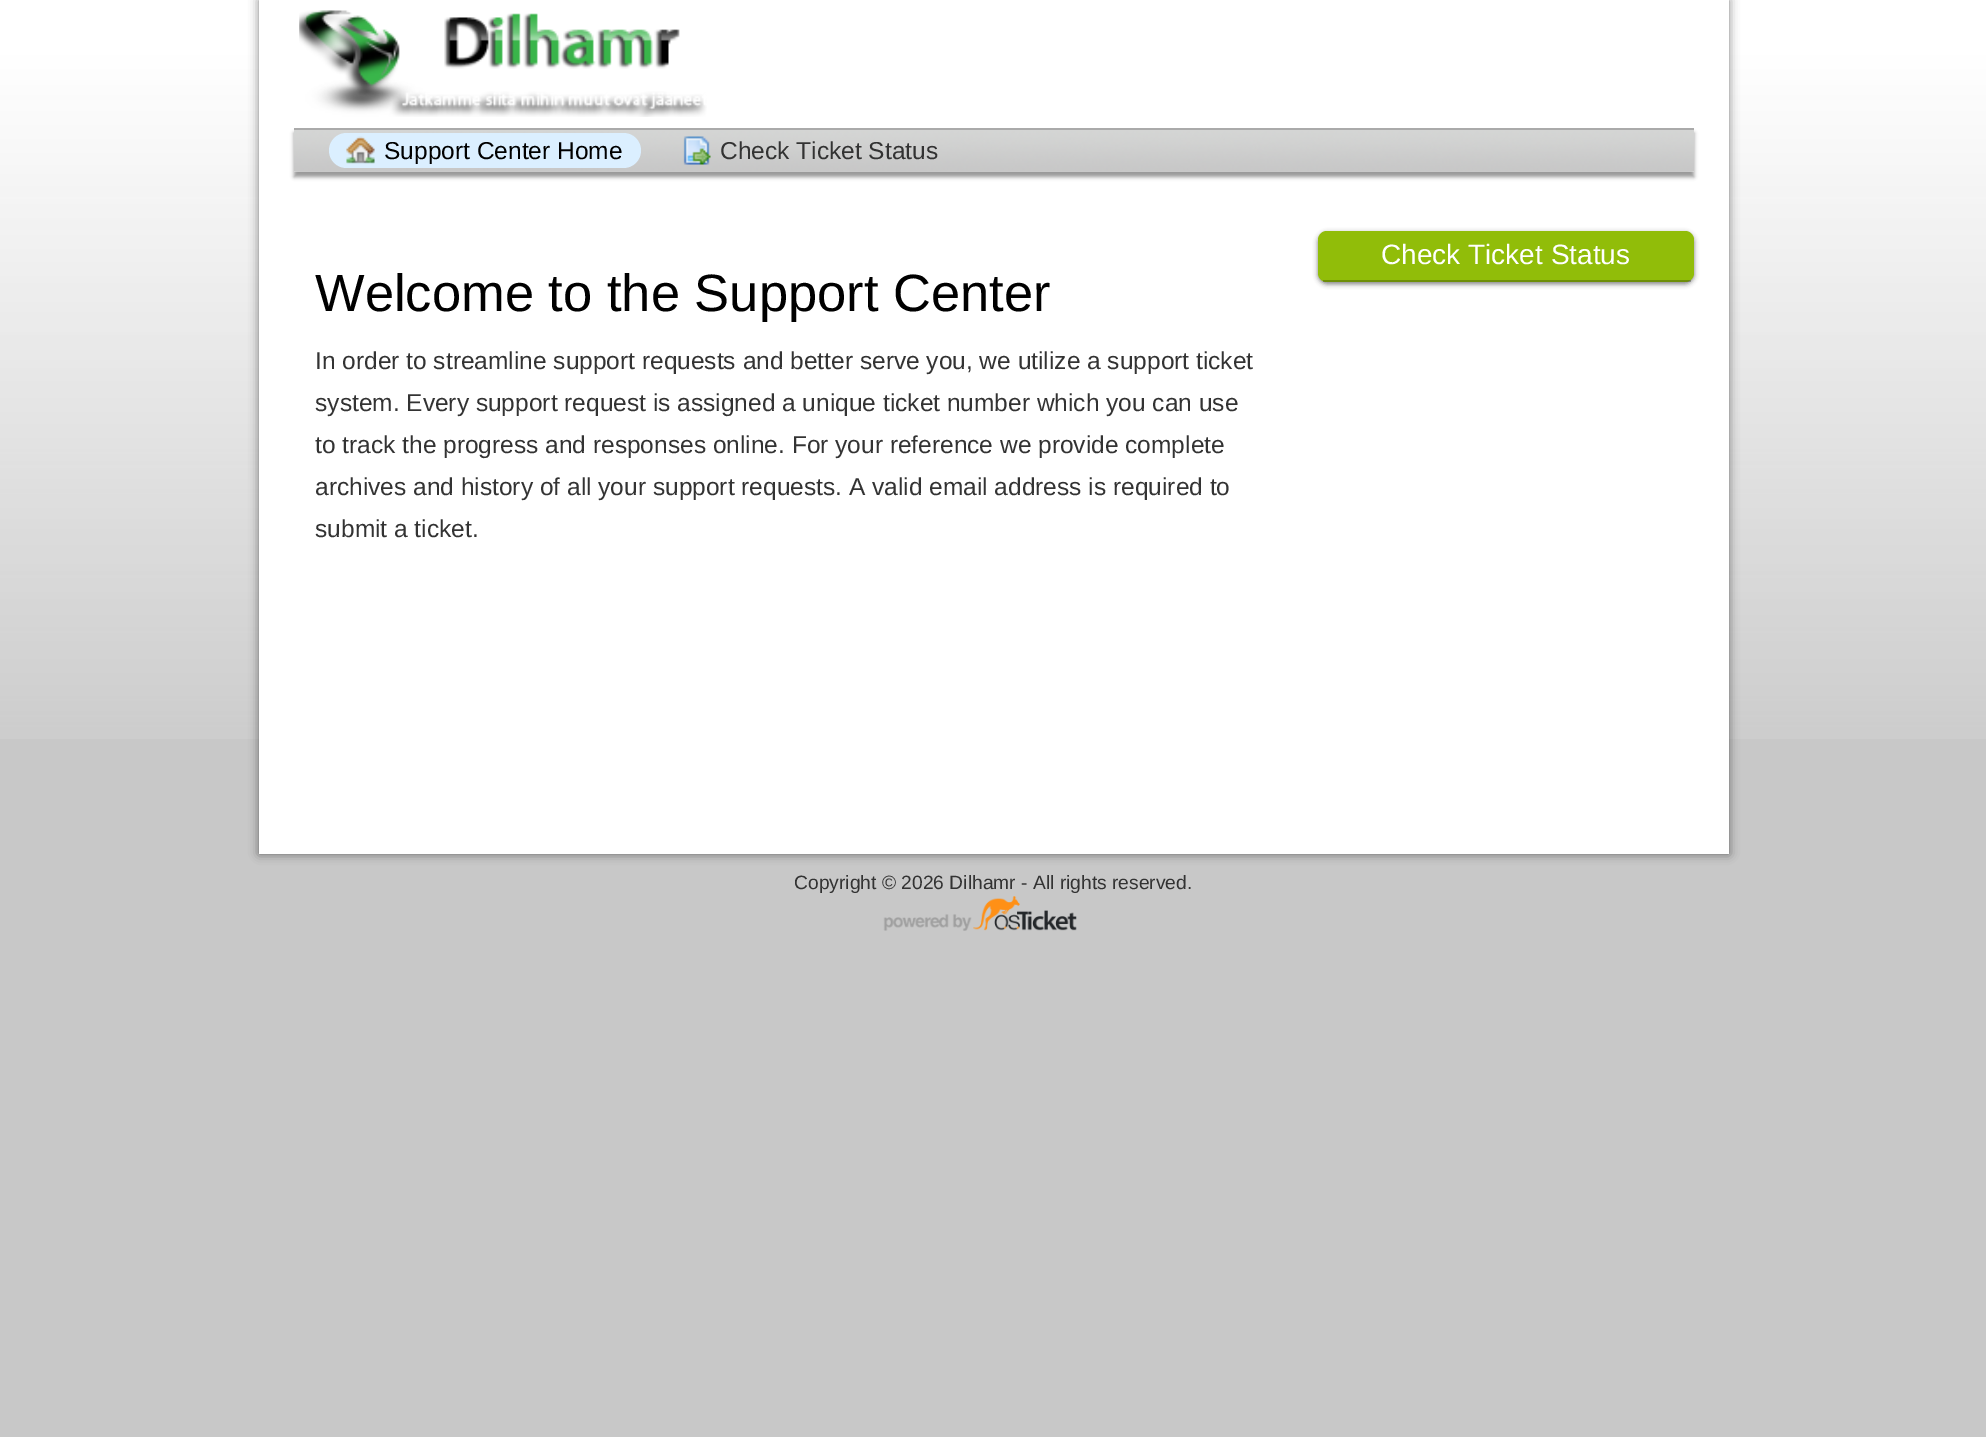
%!PS
<< /PageSize [1986 1437] /PageUsesTransparency true >> setpagedevice
/alpha { dup .setfillconstantalpha .setstrokeconstantalpha } def
/roundrect { 5 dict begin { /r /h /w /y /x } { exch def } forall
  x r add y moveto x w add y 2 copy h add r arct x w add y h add x 1 index r arct
  x y h add x y r arct x y 2 copy exch w add exch r arct closepath end } def
/shadow { 12 dict begin { /a /b /q /h /w /y /x } { exch def } forall gsave /was 0 def
  9 -2 -9 { dup b mul 4 div /e exch def 1 sub .425 mul 2.718 exch exp 1 add a .99 .min exch div /now exch def
    1 1 now sub 1 was sub div sub alpha /was now def
    w h .min e 2 mul add 0 gt { x e sub y e sub w e 2 mul add h e 2 mul add
      q e add b .6 mul add w h .min 2 div e add .min 0 .max roundrect fill } if } for grestore end } def
/picture { 5 dict begin { /h /w /y /x /name } { exch def } forall
  gsave x y translate w h scale
  w h 8 [w 0 0 h 0 0] name (r) file false 3 colorimage grestore end } def
0 .pushpdf14devicefilter
0 1437 translate 1 -1 scale
4 setmiterlimit
0.784 setgray
0 0 1986 1437 rectfill
(img1.rgb) 0 0 1986 739 picture
0 setgray
259 0 1470 854 0 5 0.5 shadow
1 setgray
259 0 1470 854 rectfill
(img2.rgb) 299 10 408 107 picture
0 setgray
294 133 1400 44 0 2 0.4 shadow
(img3.rgb) 294 130 1400 42 picture
0.667 setgray
294 128 1400 2 rectfill
0.859 0.937 1 setrgbcolor
329 133 312 35 17.5 roundrect fill
(img4.rgb) 346 136 29 28 picture
/LiberationSans-Regular [24.5 0 0 -24.5 0 0] selectfont
0 setgray
384 159 moveto (Support Center Home) show
(img5.rgb) 683 136 28 29 picture
0.2 setgray
720 159 moveto (Check Ticket Status) show
0 setgray
1318 233 376 51 9 2.5 0.5 shadow
0.569 0.741 0.035 setrgbcolor
1318 231 376 51 9 roundrect fill
0.25 alpha
0 setgray
1323 280 368 2 rectfill
/LiberationSans-Regular [28 0 0 -28 0 0] selectfont
1 alpha
1 setgray
1381 264 moveto (Check Ticket Status) show
/LiberationSans-Regular [52.5 0 0 -52.5 0 0] selectfont
0 setgray
315 311 moveto (Welcome to the Support Center) show
/LiberationSans-Regular [24.5 0 0 -24.5 0 0] selectfont
0.2 setgray
315 369 moveto (In order to streamline support requests and better serve you, we utilize a support ticket) show
315 411 moveto (system. Every support request is assigned a unique ticket number which you can use) show
315 453 moveto (to track the progress and responses online. For your reference we provide complete) show
315 495 moveto (archives and history of all your support requests. A valid email address is required to) show
315 537 moveto (submit a ticket.) show
/LiberationSans-Regular [19.25 0 0 -19.25 0 0] selectfont
794 889 moveto (Copyright © 2026 Dilhamr - All rights reserved.) show
(img6.rgb) 883 896 194 35 picture
.poppdf14devicefilter showpage
